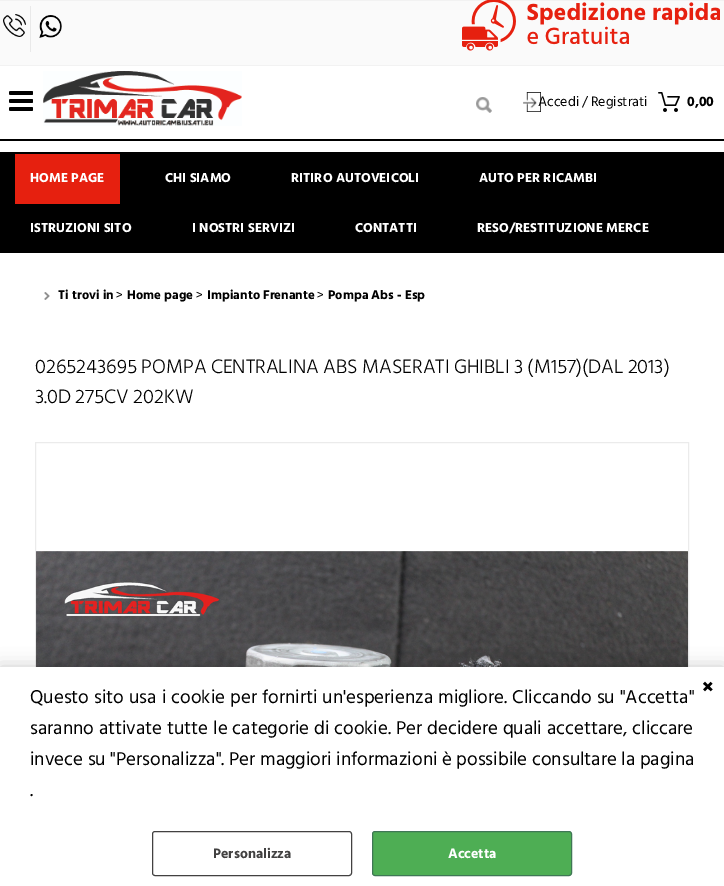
%!PS
<< /PageSize [724 886] /PageUsesTransparency true >> setpagedevice
/alpha { dup .setfillconstantalpha .setstrokeconstantalpha } def
/roundrect { 5 dict begin { /r /h /w /y /x } { exch def } forall
  x r add y moveto x w add y 2 copy h add r arct x w add y h add x 1 index r arct
  x y h add x y r arct x y 2 copy exch w add exch r arct closepath end } def
/shadow { 12 dict begin { /a /b /q /h /w /y /x } { exch def } forall gsave /was 0 def
  9 -2 -9 { dup b mul 4 div /e exch def 1 sub .425 mul 2.718 exch exp 1 add a .99 .min exch div /now exch def
    1 1 now sub 1 was sub div sub alpha /was now def
    w h .min e 2 mul add 0 gt { x e sub y e sub w e 2 mul add h e 2 mul add
      q e add b .6 mul add w h .min 2 div e add .min 0 .max roundrect fill } if } for grestore end } def
/picture { 5 dict begin { /h /w /y /x /name } { exch def } forall
  gsave x y translate w h scale
  w h 8 [w 0 0 h 0 0] name (r) file false 3 colorimage grestore end } def
0 .pushpdf14devicefilter
0 886 translate 1 -1 scale
4 setmiterlimit
1 setgray
0 0 724 886 rectfill
0.98 setgray
0 1 724 64 rectfill
0.949 setgray
0 0 724 1 rectfill
0 65 724 1 rectfill
(img1.rgb) 3 14 23 23 picture
0.914 setgray
30 6 1 46 rectfill
(img2.rgb) 39 15 23 23 picture
(img3.rgb) 462 0 258 51 picture
0 setgray
0 139 724 2 rectfill
(img4.rgb) 9 91 24 20 picture
(img5.rgb) 43 71 199 55 picture
(img6.rgb) 476 97 16 16 picture
(img7.rgb) 523 92 18 20 picture
/HindSiliguri-Regular [14 0 0 -14 0 0] selectfont
538 106 moveto (Accedi / Registrati) show
(img8.rgb) 658 92 22 20 picture
/HindSiliguri-Bold [14 0 0 -14 0 0] selectfont
687 106 moveto (0,00) show
0 152 724 101 rectfill
0.902 0.125 0.059 setrgbcolor
15 154 105 50 rectfill
/HindSiliguri-Bold [13.25 0 0 -13.25 0 0] selectfont
1 setgray
30 182 moveto (HOME PAGE) show
165 182 moveto (CHI SIAMO) show
291 182 moveto (RITIRO AUTOVEICOLI) show
479 182 moveto (AUTO PER RICAMBI) show
30 232 moveto (ISTRUZIONI SITO) show
192 232 moveto (I NOSTRI SERVIZI) show
355 232 moveto (CONTATTI) show
477 232 moveto (RESO/RESTITUZIONE MERCE) show
(img9.rgb) 44 292 6 8 picture
/HindSiliguri-Bold [12.9 0 0 -12.9 0 0] selectfont
0 setgray
58 299 moveto (Ti trovi in) show
/HindSiliguri-Regular [12.9 0 0 -12.9 0 0] selectfont
116 299 moveto (>) show
/HindSiliguri-Bold [12.9 0 0 -12.9 0 0] selectfont
127 299 moveto (Home page) show
/HindSiliguri-Regular [12.9 0 0 -12.9 0 0] selectfont
196 299 moveto (>) show
/HindSiliguri-Bold [12.9 0 0 -12.9 0 0] selectfont
207 299 moveto (Impianto Frenante) show
/HindSiliguri-Regular [12.9 0 0 -12.9 0 0] selectfont
317 299 moveto (>) show
/HindSiliguri-Bold [12.9 0 0 -12.9 0 0] selectfont
328 299 moveto (Pompa Abs - Esp) show
/HindSiliguri-Light [20 0 0 -20 0 0] selectfont
35 373 moveto (0265243695 POMPA CENTRALINA ABS MASERATI GHIBLI 3 \(M157\)\(DAL 2013\)) show
35 403 moveto (3.0D 275CV 202KW) show
0.922 setgray
35.5 442.5 653 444 rectstroke
(img10.rgb) 36 551 652 116 picture
0 setgray
0 667 724 219 0 9 0.2 shadow
1 setgray
0 667 724 219 rectfill
/HindSiliguri-Bold [22 0 0 -22 0 0] selectfont
0 setgray
702 694 moveto (×) show
/HindSiliguri-Regular [19 0 0 -19 0 0] selectfont
30 703 moveto 0.75 0 32 (Questo sito usa i cookie per fornirti un'esperienza migliore. Cliccando su "Accetta") widthshow
30 734 moveto 0.5 0 32 (saranno attivate tutte le categorie di cookie. Per decidere quali accettare, cliccare) widthshow
30 765 moveto 0.25 0 32 (invece su "Personalizza". Per maggiori informazioni è possibile consultare la pagina) widthshow
30 796 moveto (.) show
0.259 0.255 0.255 setrgbcolor
152.5 831.5 199 44 2.5 roundrect stroke
/HindSiliguri-Bold [14 0 0 -14 0 0] selectfont
213 858 moveto (Personalizza) show
0.306 0.682 0.329 setrgbcolor
372.5 831.5 199 44 2.5 roundrect gsave fill grestore
0.247 0.467 0.333 setrgbcolor
stroke
1 setgray
448 858 moveto (Accetta) show
.poppdf14devicefilter showpage
